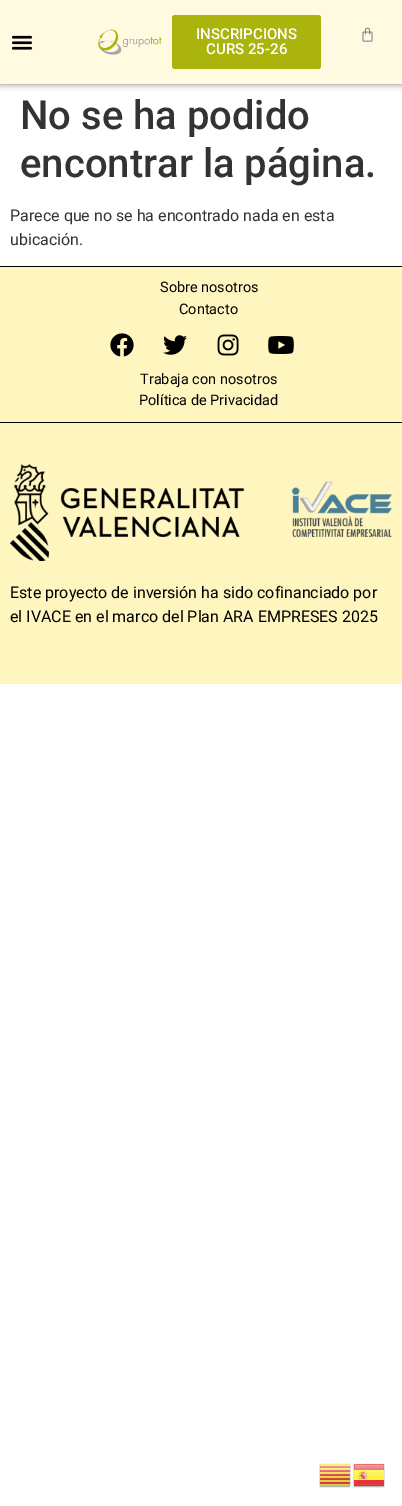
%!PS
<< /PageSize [402 1506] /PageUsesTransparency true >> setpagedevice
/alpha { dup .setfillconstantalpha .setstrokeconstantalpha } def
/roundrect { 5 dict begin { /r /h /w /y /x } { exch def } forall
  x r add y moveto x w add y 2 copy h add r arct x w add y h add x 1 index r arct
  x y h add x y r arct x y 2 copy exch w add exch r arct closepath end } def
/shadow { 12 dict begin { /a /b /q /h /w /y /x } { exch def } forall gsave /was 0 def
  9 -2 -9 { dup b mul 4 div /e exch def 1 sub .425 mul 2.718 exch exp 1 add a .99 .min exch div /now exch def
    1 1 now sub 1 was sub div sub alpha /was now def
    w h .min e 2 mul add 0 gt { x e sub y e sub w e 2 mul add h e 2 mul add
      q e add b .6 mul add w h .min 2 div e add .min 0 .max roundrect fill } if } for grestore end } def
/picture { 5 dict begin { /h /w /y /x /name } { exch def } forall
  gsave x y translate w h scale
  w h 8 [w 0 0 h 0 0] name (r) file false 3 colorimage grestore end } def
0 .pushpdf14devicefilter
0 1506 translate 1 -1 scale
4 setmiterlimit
1 setgray
0 0 402 1506 rectfill
0 setgray
0 0 402 84 0 3.5 0.5 shadow
1 0.98 0.878 setrgbcolor
0 0 402 84 rectfill
(img1.rgb) 11 35 22 15 picture
(img2.rgb) 98 29 64 26 picture
0.671 0.706 0.047 setrgbcolor
172 15 149 54 3 roundrect fill
/Roboto-Medium [15 0 0 -15 0 0] selectfont
1 setgray
196 39 moveto (INSCRIPCIONS) show
206 54 moveto (CURS 25-26) show
(img3.rgb) 362 27 11 15 picture
/Roboto-Medium [40 0 0 -40 0 0] selectfont
0.2 setgray
20 129 moveto (No se ha podido) show
20 177 moveto (encontrar la página.) show
/Roboto-Regular [16 0 0 -16 0 0] selectfont
10 221 moveto (Parece que no se ha encontrado nada en esta) show
10 245 moveto (ubicación.) show
1 0.961 0.749 setrgbcolor
0 267 402 155 rectfill
0 setgray
0 266 402 1 rectfill
/Roboto-Regular [14.5 0 0 -14.5 0 0] selectfont
160 292 moveto (Sobre nosotros) show
179 314 moveto (Contacto) show
(img4.rgb) 110 333 24 24 picture
(img5.rgb) 163 335 24 20 picture
(img6.rgb) 217 334 22 22 picture
(img7.rgb) 268 336 26 18 picture
140 384 moveto (Trabaja con nosotros) show
139 405 moveto (Política de Privacidad) show
1 0.961 0.749 setrgbcolor
0 423 402 261 rectfill
0 setgray
0 422 402 1 rectfill
(img8.rgb) 10 464 382 97 picture
/Roboto-Regular [16 0 0 -16 0 0] selectfont
10 598 moveto (Este proyecto de inversión ha sido cofinanciado por) show
10 622 moveto (el IVACE en el marco del Plan ARA EMPRESES 2025) show
(img9.rgb) 319 1463 32 25 picture
(img10.rgb) 353 1463 32 25 picture
.poppdf14devicefilter showpage
